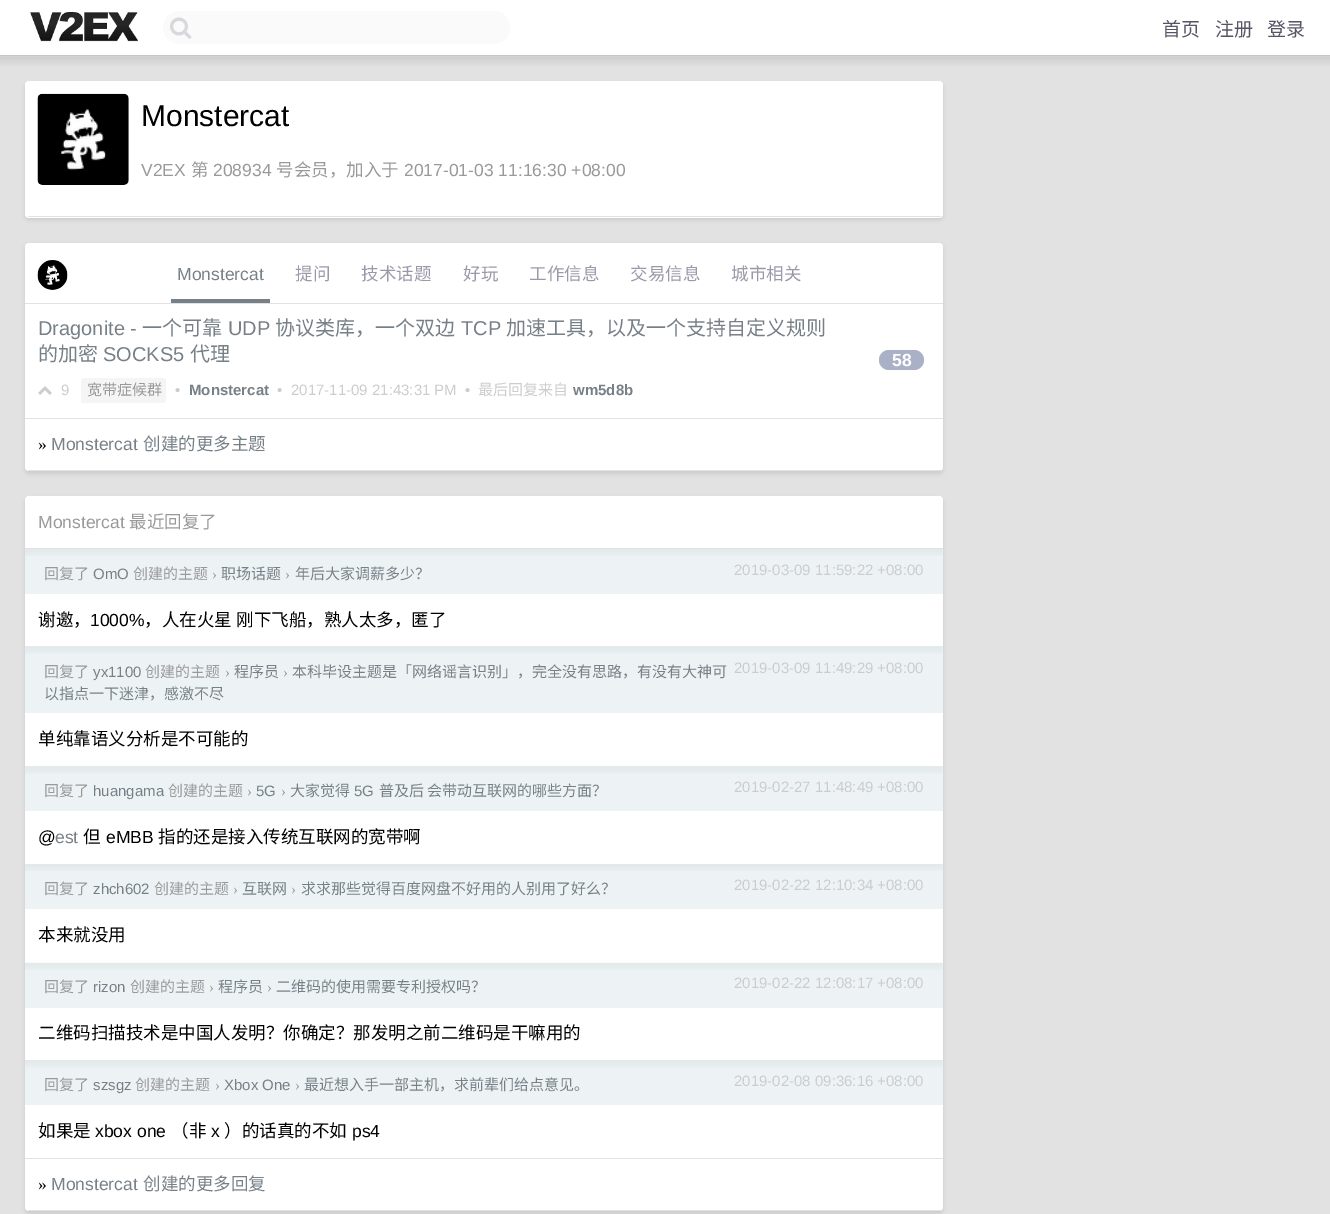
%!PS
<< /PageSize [1330 1214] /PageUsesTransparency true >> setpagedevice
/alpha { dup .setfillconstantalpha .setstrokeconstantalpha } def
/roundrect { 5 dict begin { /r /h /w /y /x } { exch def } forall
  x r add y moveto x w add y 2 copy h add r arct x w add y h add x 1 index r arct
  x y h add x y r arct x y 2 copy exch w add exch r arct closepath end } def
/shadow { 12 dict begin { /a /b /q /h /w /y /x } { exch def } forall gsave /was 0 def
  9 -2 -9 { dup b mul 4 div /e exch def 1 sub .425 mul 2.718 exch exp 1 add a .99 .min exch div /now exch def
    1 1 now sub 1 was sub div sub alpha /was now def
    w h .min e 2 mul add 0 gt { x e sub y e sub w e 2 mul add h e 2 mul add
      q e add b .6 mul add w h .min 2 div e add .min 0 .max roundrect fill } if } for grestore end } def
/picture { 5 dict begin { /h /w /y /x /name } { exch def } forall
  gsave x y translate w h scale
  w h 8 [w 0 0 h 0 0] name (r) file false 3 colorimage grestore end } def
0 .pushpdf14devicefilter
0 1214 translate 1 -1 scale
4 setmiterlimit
1 setgray
0 0 1330 1214 rectfill
0.78 setgray
0 55 1330 1 rectfill
(img1.rgb) 30 12 108 30 picture
0.98 setgray
163 11 347 33 16.5 roundrect fill
(img2.rgb) 170 17 22 22 picture
/NotoSansCJKSC-Regular [19 0 0 -19 0 0] selectfont
0.333 0.333 0.4 setrgbcolor
1162 36 moveto (首页) show
1215 36 moveto (注册) show
1267 36 moveto (登录) show
0.886 setgray
0 56 1330 1158 rectfill
(img3.rgb) 0 56 1330 10 picture
0 setgray
25 84 918 136 4 2 0.1 shadow
1 setgray
25 81 918 137 4 roundrect fill
0.886 setgray
28 216 913 1 rectfill
(img4.rgb) 37 93 92 92 picture
/LiberationSans-Regular [30 0 0 -30 0 0] selectfont
0 setgray
141 126 moveto (Monstercat) show
/LiberationSans-Regular [17.5 0 0 -17.5 0 0] selectfont
0.6 setgray
141 176 moveto (V2EX) show
/NotoSansCJKSC-Regular [17.5 0 0 -17.5 0 0] selectfont
191 176 moveto (第) show
/LiberationSans-Regular [17.5 0 0 -17.5 0 0] selectfont
213 176 moveto (208934) show
/NotoSansCJKSC-Regular [17.5 0 0 -17.5 0 0] selectfont
276 176 moveto (号会员，加入于) show
/LiberationSans-Regular [17.5 0 0 -17.5 0 0] selectfont
404 176 moveto (2017-01-03 11:16:30 +08:00) show
0 setgray
25 245 918 229 4 2 0.1 shadow
1 setgray
25 243 918 228 4 roundrect fill
0.886 setgray
28 470 913 1 rectfill
25 303 918 1 rectfill
(img5.rgb) 37 260 31 30 picture
0.467 0.502 0.529 setrgbcolor
171 299 99 4 rectfill
177 280 moveto (Monstercat) show
/NotoSansCJKSC-Regular [17.5 0 0 -17.5 0 0] selectfont
0.6 0.6 0.667 setrgbcolor
295 280 moveto (提问) show
361 280 moveto (技术话题) show
463 280 moveto (好玩) show
529 280 moveto (工作信息) show
630 280 moveto (交易信息) show
731 280 moveto (城市相关) show
0.886 setgray
25 418 918 1 rectfill
/LiberationSans-Regular [20 0 0 -20 0 0] selectfont
0.467 0.502 0.529 setrgbcolor
38 335 moveto (Dragonite -) show
/NotoSansCJKSC-Regular [20 0 0 -20 0 0] selectfont
142 335 moveto (一个可靠) show
/LiberationSans-Regular [20 0 0 -20 0 0] selectfont
228 335 moveto (UDP) show
/NotoSansCJKSC-Regular [20 0 0 -20 0 0] selectfont
275 335 moveto (协议类库，一个双边) show
/LiberationSans-Regular [20 0 0 -20 0 0] selectfont
461 335 moveto (TCP) show
/NotoSansCJKSC-Regular [20 0 0 -20 0 0] selectfont
506 335 moveto (加速工具，以及一个支持自定义规则) show
38 361 moveto (的加密) show
/LiberationSans-Regular [20 0 0 -20 0 0] selectfont
103 361 moveto (SOCKS5) show
/NotoSansCJKSC-Regular [20 0 0 -20 0 0] selectfont
190 361 moveto (代理) show
(img6.rgb) 38 386 14 9 picture
/LiberationSans-Regular [15 0 0 -15 0 0] selectfont
0.8 setgray
61 395 moveto (9) show
0.961 setgray
81 378 85 25 2.5 roundrect fill
/NotoSansCJKSC-Regular [15 0 0 -15 0 0] selectfont
0.6 setgray
87 395 moveto (宽带症候群) show
/LiberationSans-Regular [15 0 0 -15 0 0] selectfont
0.8 setgray
175 395 moveto (•) show
/LiberationSans-Bold [15 0 0 -15 0 0] selectfont
0.467 0.502 0.529 setrgbcolor
189 395 moveto (Monstercat) show
/LiberationSans-Regular [15 0 0 -15 0 0] selectfont
0.8 setgray
277 395 moveto (•) show
291 395 moveto (2017-11-09 21:43:31 PM) show
465 395 moveto (•) show
/NotoSansCJKSC-Regular [15 0 0 -15 0 0] selectfont
478 395 moveto (最后回复来自) show
/LiberationSans-Bold [15 0 0 -15 0 0] selectfont
0.467 0.502 0.529 setrgbcolor
573 395 moveto (wm5d8b) show
0.667 0.69 0.776 setrgbcolor
879 350 45 20 10 roundrect fill
/LiberationSans-Bold [17.5 0 0 -17.5 0 0] selectfont
1 setgray
892 366 moveto (58) show
/LiberationSerif-Regular [17.5 0 0 -17.5 0 0] selectfont
0 setgray
38 450 moveto (») show
/LiberationSans-Regular [17.5 0 0 -17.5 0 0] selectfont
0.467 0.502 0.529 setrgbcolor
51 450 moveto (Monstercat) show
/NotoSansCJKSC-Regular [17.5 0 0 -17.5 0 0] selectfont
143 450 moveto (创建的更多主题) show
0 setgray
25 499 918 715 4 2 0.1 shadow
1 setgray
25 496 918 715 4 roundrect fill
0.886 setgray
28 1210 913 1 rectfill
25 548 918 1 rectfill
/LiberationSans-Regular [17.5 0 0 -17.5 0 0] selectfont
0.6 setgray
38 528 moveto (Monstercat) show
/NotoSansCJKSC-Regular [17.5 0 0 -17.5 0 0] selectfont
129 528 moveto (最近回复了) show
0.929 0.953 0.961 setrgbcolor
25 549 918 45 rectfill
(img7.rgb) 25 549 918 7 picture
/NotoSansCJKSC-Regular [15 0 0 -15 0 0] selectfont
0.6 setgray
44 579 moveto (回复了) show
/LiberationSans-Regular [15 0 0 -15 0 0] selectfont
0.467 0.502 0.529 setrgbcolor
93 579 moveto (OmO) show
/NotoSansCJKSC-Regular [15 0 0 -15 0 0] selectfont
0.6 setgray
133 579 moveto (创建的主题) show
/LiberationSerif-Regular [15 0 0 -15 0 0] selectfont
212 579 moveto (›) show
/NotoSansCJKSC-Regular [15 0 0 -15 0 0] selectfont
0.467 0.502 0.529 setrgbcolor
221 579 moveto (职场话题) show
/LiberationSerif-Regular [15 0 0 -15 0 0] selectfont
0.6 setgray
285 579 moveto (›) show
/NotoSansCJKSC-Regular [15 0 0 -15 0 0] selectfont
0.467 0.502 0.529 setrgbcolor
295 579 moveto (年后大家调薪多少？) show
/LiberationSans-Regular [15 0 0 -15 0 0] selectfont
0.8 setgray
734 575 moveto (2019-03-09 11:59:22 +08:00) show
/NotoSansCJKSC-Regular [17.5 0 0 -17.5 0 0] selectfont
0 setgray
38 626 moveto (谢邀，) show
/LiberationSans-Regular [17.5 0 0 -17.5 0 0] selectfont
90 626 moveto (1000%) show
/NotoSansCJKSC-Regular [17.5 0 0 -17.5 0 0] selectfont
144 626 moveto 1 0 32 (，人在火星 刚下飞船，熟人太多，匿了) widthshow
0.929 0.953 0.961 setrgbcolor
25 646 918 67 rectfill
(img8.rgb) 25 646 918 8 picture
/NotoSansCJKSC-Regular [15 0 0 -15 0 0] selectfont
0.6 setgray
44 677 moveto (回复了) show
/LiberationSans-Regular [15 0 0 -15 0 0] selectfont
0.467 0.502 0.529 setrgbcolor
93 677 moveto (yx1100) show
/NotoSansCJKSC-Regular [15 0 0 -15 0 0] selectfont
0.6 setgray
145 677 moveto (创建的主题) show
/LiberationSerif-Regular [15 0 0 -15 0 0] selectfont
225 677 moveto (›) show
/NotoSansCJKSC-Regular [15 0 0 -15 0 0] selectfont
0.467 0.502 0.529 setrgbcolor
234 677 moveto (程序员) show
/LiberationSerif-Regular [15 0 0 -15 0 0] selectfont
0.6 setgray
283 677 moveto (›) show
/NotoSansCJKSC-Regular [15 0 0 -15 0 0] selectfont
0.467 0.502 0.529 setrgbcolor
292 677 moveto (本科毕设主题是「网络谣言识别」，完全没有思路，有没有大神可) show
/LiberationSans-Regular [15 0 0 -15 0 0] selectfont
0.8 setgray
734 673 moveto (2019-03-09 11:49:29 +08:00) show
/NotoSansCJKSC-Regular [15 0 0 -15 0 0] selectfont
0.467 0.502 0.529 setrgbcolor
44 699 moveto (以指点一下迷津，感激不尽) show
/NotoSansCJKSC-Regular [17.5 0 0 -17.5 0 0] selectfont
0 setgray
38 745 moveto (单纯靠语义分析是不可能的) show
0.929 0.953 0.961 setrgbcolor
25 766 918 45 rectfill
(img9.rgb) 25 766 918 8 picture
/NotoSansCJKSC-Regular [15 0 0 -15 0 0] selectfont
0.6 setgray
44 796 moveto (回复了) show
/LiberationSans-Regular [15 0 0 -15 0 0] selectfont
0.467 0.502 0.529 setrgbcolor
93 796 moveto (huangama) show
/NotoSansCJKSC-Regular [15 0 0 -15 0 0] selectfont
0.6 setgray
168 796 moveto (创建的主题) show
/LiberationSerif-Regular [15 0 0 -15 0 0] selectfont
247 796 moveto (›) show
/LiberationSans-Regular [15 0 0 -15 0 0] selectfont
0.467 0.502 0.529 setrgbcolor
256 796 moveto (5G) show
/LiberationSerif-Regular [15 0 0 -15 0 0] selectfont
0.6 setgray
281 796 moveto (›) show
/NotoSansCJKSC-Regular [15 0 0 -15 0 0] selectfont
0.467 0.502 0.529 setrgbcolor
290 796 moveto (大家觉得) show
/LiberationSans-Regular [15 0 0 -15 0 0] selectfont
354 796 moveto (5G) show
/NotoSansCJKSC-Regular [15 0 0 -15 0 0] selectfont
379 796 moveto (普及后 会带动互联网的哪些方面？) show
/LiberationSans-Regular [15 0 0 -15 0 0] selectfont
0.8 setgray
734 792 moveto (2019-02-27 11:48:49 +08:00) show
/LiberationSans-Regular [17.5 0 0 -17.5 0 0] selectfont
0 setgray
38 843 moveto (@) show
0.467 0.502 0.529 setrgbcolor
55 843 moveto (est) show
/NotoSansCJKSC-Regular [17.5 0 0 -17.5 0 0] selectfont
0 setgray
83 843 moveto (但) show
/LiberationSans-Regular [17.5 0 0 -17.5 0 0] selectfont
106 843 moveto (eMBB) show
/NotoSansCJKSC-Regular [17.5 0 0 -17.5 0 0] selectfont
158 843 moveto (指的还是接入传统互联网的宽带啊) show
0.929 0.953 0.961 setrgbcolor
25 864 918 45 rectfill
(img10.rgb) 25 864 918 7 picture
/NotoSansCJKSC-Regular [15 0 0 -15 0 0] selectfont
0.6 setgray
44 894 moveto (回复了) show
/LiberationSans-Regular [15 0 0 -15 0 0] selectfont
0.467 0.502 0.529 setrgbcolor
93 894 moveto (zhch602) show
/NotoSansCJKSC-Regular [15 0 0 -15 0 0] selectfont
0.6 setgray
154 894 moveto (创建的主题) show
/LiberationSerif-Regular [15 0 0 -15 0 0] selectfont
233 894 moveto (›) show
/NotoSansCJKSC-Regular [15 0 0 -15 0 0] selectfont
0.467 0.502 0.529 setrgbcolor
242 894 moveto (互联网) show
/LiberationSerif-Regular [15 0 0 -15 0 0] selectfont
0.6 setgray
291 894 moveto (›) show
/NotoSansCJKSC-Regular [15 0 0 -15 0 0] selectfont
0.467 0.502 0.529 setrgbcolor
301 894 moveto (求求那些觉得百度网盘不好用的人别用了好么？) show
/LiberationSans-Regular [15 0 0 -15 0 0] selectfont
0.8 setgray
734 890 moveto (2019-02-22 12:10:34 +08:00) show
/NotoSansCJKSC-Regular [17.5 0 0 -17.5 0 0] selectfont
0 setgray
38 941 moveto (本来就没用) show
0.929 0.953 0.961 setrgbcolor
25 963 918 45 rectfill
(img11.rgb) 25 962 918 8 picture
/NotoSansCJKSC-Regular [15 0 0 -15 0 0] selectfont
0.6 setgray
44 992 moveto (回复了) show
/LiberationSans-Regular [15 0 0 -15 0 0] selectfont
0.467 0.502 0.529 setrgbcolor
93 992 moveto (rizon) show
/NotoSansCJKSC-Regular [15 0 0 -15 0 0] selectfont
0.6 setgray
130 992 moveto (创建的主题) show
/LiberationSerif-Regular [15 0 0 -15 0 0] selectfont
209 992 moveto (›) show
/NotoSansCJKSC-Regular [15 0 0 -15 0 0] selectfont
0.467 0.502 0.529 setrgbcolor
218 992 moveto (程序员) show
/LiberationSerif-Regular [15 0 0 -15 0 0] selectfont
0.6 setgray
267 992 moveto (›) show
/NotoSansCJKSC-Regular [15 0 0 -15 0 0] selectfont
0.467 0.502 0.529 setrgbcolor
276 992 moveto (二维码的使用需要专利授权吗？) show
/LiberationSans-Regular [15 0 0 -15 0 0] selectfont
0.8 setgray
734 988 moveto (2019-02-22 12:08:17 +08:00) show
/NotoSansCJKSC-Regular [17.5 0 0 -17.5 0 0] selectfont
0 setgray
38 1039 moveto (二维码扫描技术是中国人发明？你确定？那发明之前二维码是干嘛用的) show
0.929 0.953 0.961 setrgbcolor
25 1060 918 45 rectfill
(img12.rgb) 25 1060 918 8 picture
/NotoSansCJKSC-Regular [15 0 0 -15 0 0] selectfont
0.6 setgray
44 1090 moveto (回复了) show
/LiberationSans-Regular [15 0 0 -15 0 0] selectfont
0.467 0.502 0.529 setrgbcolor
93 1090 moveto (szsgz) show
/NotoSansCJKSC-Regular [15 0 0 -15 0 0] selectfont
0.6 setgray
135 1090 moveto (创建的主题) show
/LiberationSerif-Regular [15 0 0 -15 0 0] selectfont
215 1090 moveto (›) show
/LiberationSans-Regular [15 0 0 -15 0 0] selectfont
0.467 0.502 0.529 setrgbcolor
224 1090 moveto (Xbox One) show
/LiberationSerif-Regular [15 0 0 -15 0 0] selectfont
0.6 setgray
295 1090 moveto (›) show
/NotoSansCJKSC-Regular [15 0 0 -15 0 0] selectfont
0.467 0.502 0.529 setrgbcolor
304 1090 moveto (最近想入手一部主机，求前辈们给点意见。) show
/LiberationSans-Regular [15 0 0 -15 0 0] selectfont
0.8 setgray
734 1086 moveto (2019-02-08 09:36:16 +08:00) show
0.886 setgray
25 1158 918 1 rectfill
/NotoSansCJKSC-Regular [17.5 0 0 -17.5 0 0] selectfont
0 setgray
38 1137 moveto (如果是) show
/LiberationSans-Regular [17.5 0 0 -17.5 0 0] selectfont
95 1137 moveto (xbox one) show
/NotoSansCJKSC-Regular [17.5 0 0 -17.5 0 0] selectfont
171 1137 moveto (（非) show
/LiberationSans-Regular [17.5 0 0 -17.5 0 0] selectfont
211 1137 moveto (x) show
/NotoSansCJKSC-Regular [17.5 0 0 -17.5 0 0] selectfont
224 1137 moveto (）的话真的不如) show
/LiberationSans-Regular [17.5 0 0 -17.5 0 0] selectfont
352 1137 moveto (ps4) show
/LiberationSerif-Regular [17.5 0 0 -17.5 0 0] selectfont
38 1190 moveto (») show
/LiberationSans-Regular [17.5 0 0 -17.5 0 0] selectfont
0.467 0.502 0.529 setrgbcolor
51 1190 moveto (Monstercat) show
/NotoSansCJKSC-Regular [17.5 0 0 -17.5 0 0] selectfont
143 1190 moveto (创建的更多回复) show
.poppdf14devicefilter showpage
